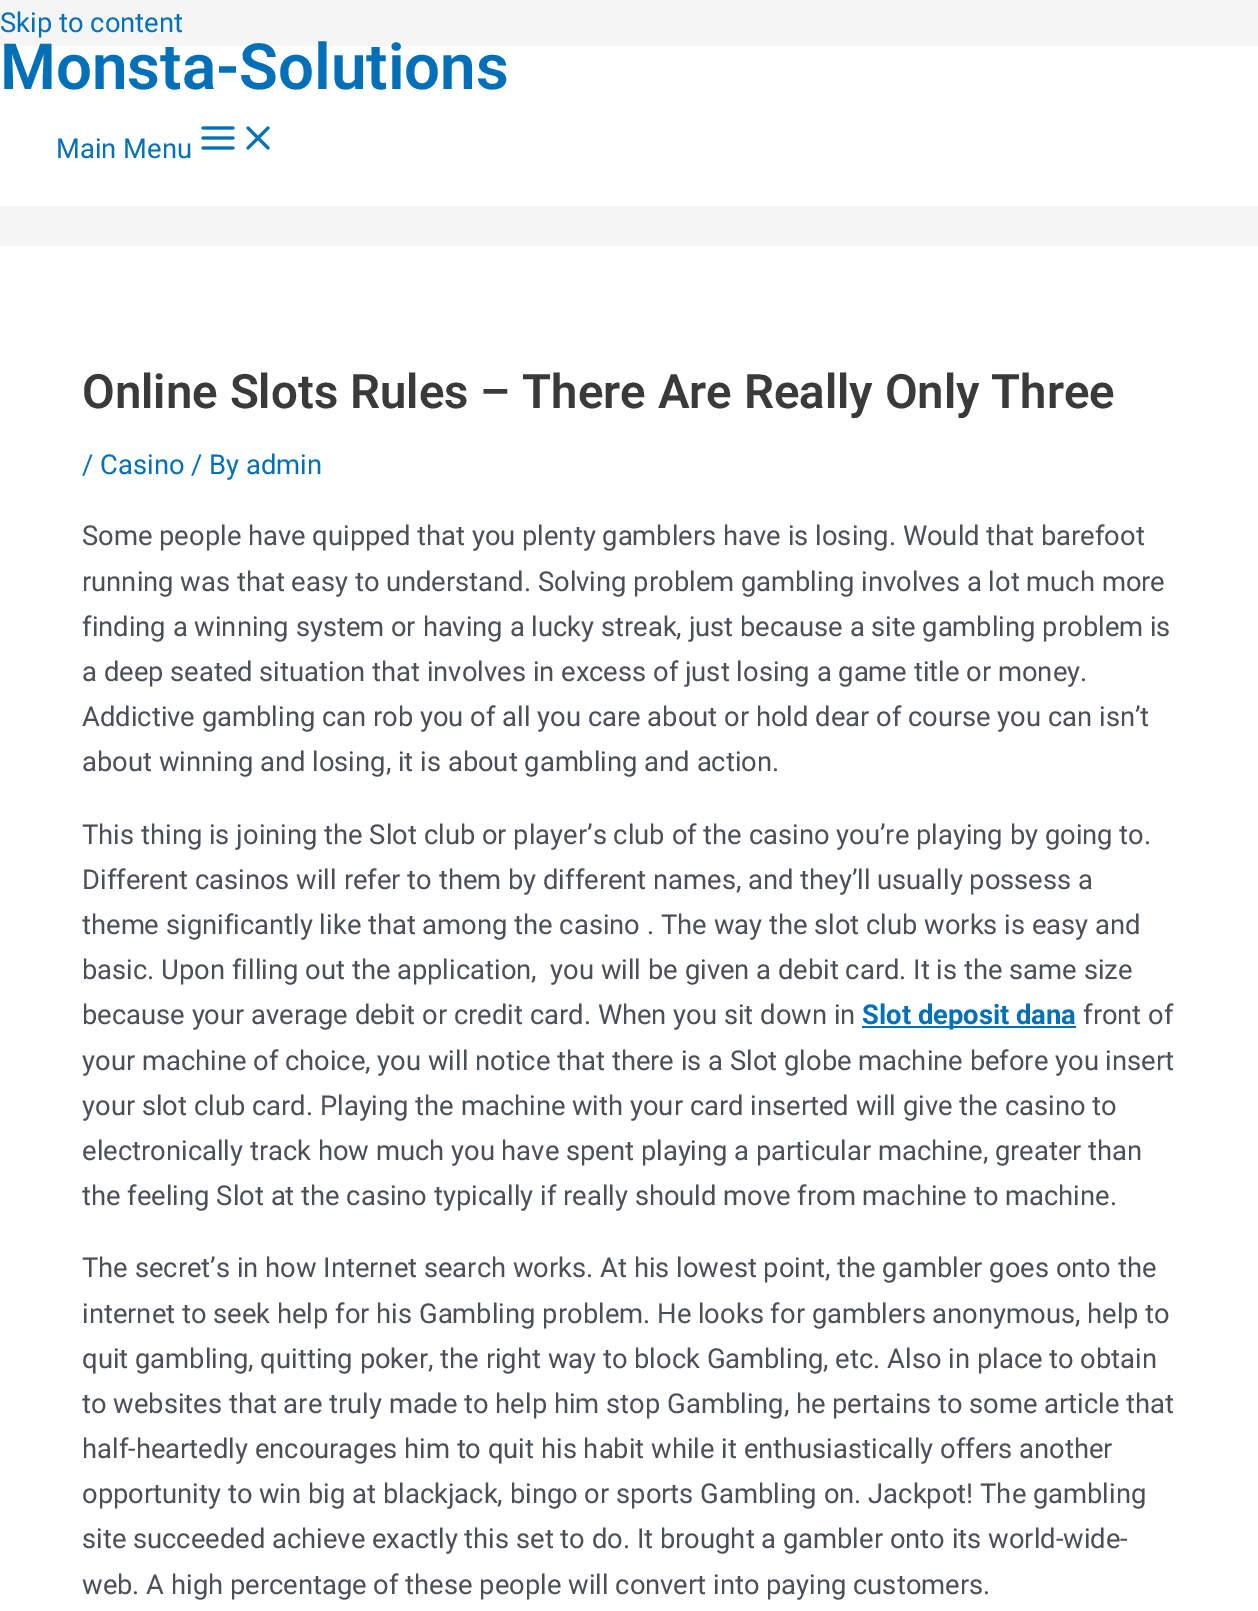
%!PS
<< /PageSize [1258 1611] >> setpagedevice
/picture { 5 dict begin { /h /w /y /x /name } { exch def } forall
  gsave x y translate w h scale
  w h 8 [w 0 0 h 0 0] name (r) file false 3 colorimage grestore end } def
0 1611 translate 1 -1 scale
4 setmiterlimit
0.961 setgray
0 0 1258 1611 rectfill
/Roboto-Regular [27.35 0 0 -27.35 0 0] selectfont
0.004 0.439 0.725 setrgbcolor
0 32 moveto (Skip to content) show
1 setgray
0 46 1258 160 rectfill
/Roboto-SemiBold [63.75 0 0 -63.75 0 0] selectfont
0.004 0.439 0.725 setrgbcolor
0 89 moveto (Monsta-Solutions) show
/Roboto-Regular [27.35 0 0 -27.35 0 0] selectfont
56 158 moveto (Main Menu) show
(img1.rgb) 201 126 34 24 picture
(img2.rgb) 246 126 24 24 picture
1 setgray
0 246 1258 1365 rectfill
/Roboto-SemiBold [47.4 0 0 -47.4 0 0] selectfont
0.227 setgray
82 408 moveto (Online Slots Rules – There Are Really Only Three) show
/Roboto-Regular [27.35 0 0 -27.35 0 0] selectfont
0.004 0.439 0.725 setrgbcolor
82 474 moveto (/ Casino / By admin) show
0.294 0.31 0.345 setrgbcolor
82 545 moveto (Some people have quipped that you plenty gamblers have is losing. Would that barefoot) show
82 591 moveto (running was that easy to understand. Solving problem gambling involves a lot much more) show
82 636 moveto (finding a winning system or having a lucky streak, just because a site gambling problem is) show
82 681 moveto (a deep seated situation that involves in excess of just losing a game title or money.) show
82 726 moveto (Addictive gambling can rob you of all you care about or hold dear of course you can isn’t) show
82 771 moveto (about winning and losing, it is about gambling and action.) show
82 844 moveto (This thing is joining the Slot club or player’s club of the casino you’re playing by going to.) show
82 889 moveto (Different casinos will refer to them by different names, and they’ll usually possess a) show
82 934 moveto (theme significantly like that among the casino . The way the slot club works is easy and) show
82 979 moveto (basic. Upon filling out the application,  you will be given a debit card. It is the same size) show
82 1024 moveto (because your average debit or credit card. When you sit down in) show
0.004 0.439 0.725 setrgbcolor
862 1026 214 2 rectfill
/Roboto-Bold [27.35 0 0 -27.35 0 0] selectfont
862 1024 moveto (Slot deposit dana) show
/Roboto-Regular [27.35 0 0 -27.35 0 0] selectfont
0.294 0.31 0.345 setrgbcolor
1083 1024 moveto (front of) show
82 1070 moveto (your machine of choice, you will notice that there is a Slot globe machine before you insert) show
82 1115 moveto (your slot club card. Playing the machine with your card inserted will give the casino to) show
82 1160 moveto (electronically track how much you have spent playing a particular machine, greater than) show
82 1205 moveto (the feeling Slot at the casino typically if really should move from machine to machine.) show
82 1277 moveto (The secret’s in how Internet search works. At his lowest point, the gambler goes onto the) show
82 1323 moveto (internet to seek help for his Gambling problem. He looks for gamblers anonymous, help to) show
82 1368 moveto (quit gambling, quitting poker, the right way to block Gambling, etc. Also in place to obtain) show
82 1413 moveto (to websites that are truly made to help him stop Gambling, he pertains to some article that) show
82 1458 moveto (half-heartedly encourages him to quit his habit while it enthusiastically offers another) show
82 1503 moveto (opportunity to win big at blackjack, bingo or sports Gambling on. Jackpot! The gambling) show
82 1548 moveto (site succeeded achieve exactly this set to do. It brought a gambler onto its world-wide-) show
82 1594 moveto (web. A high percentage of these people will convert into paying customers.) show
showpage
